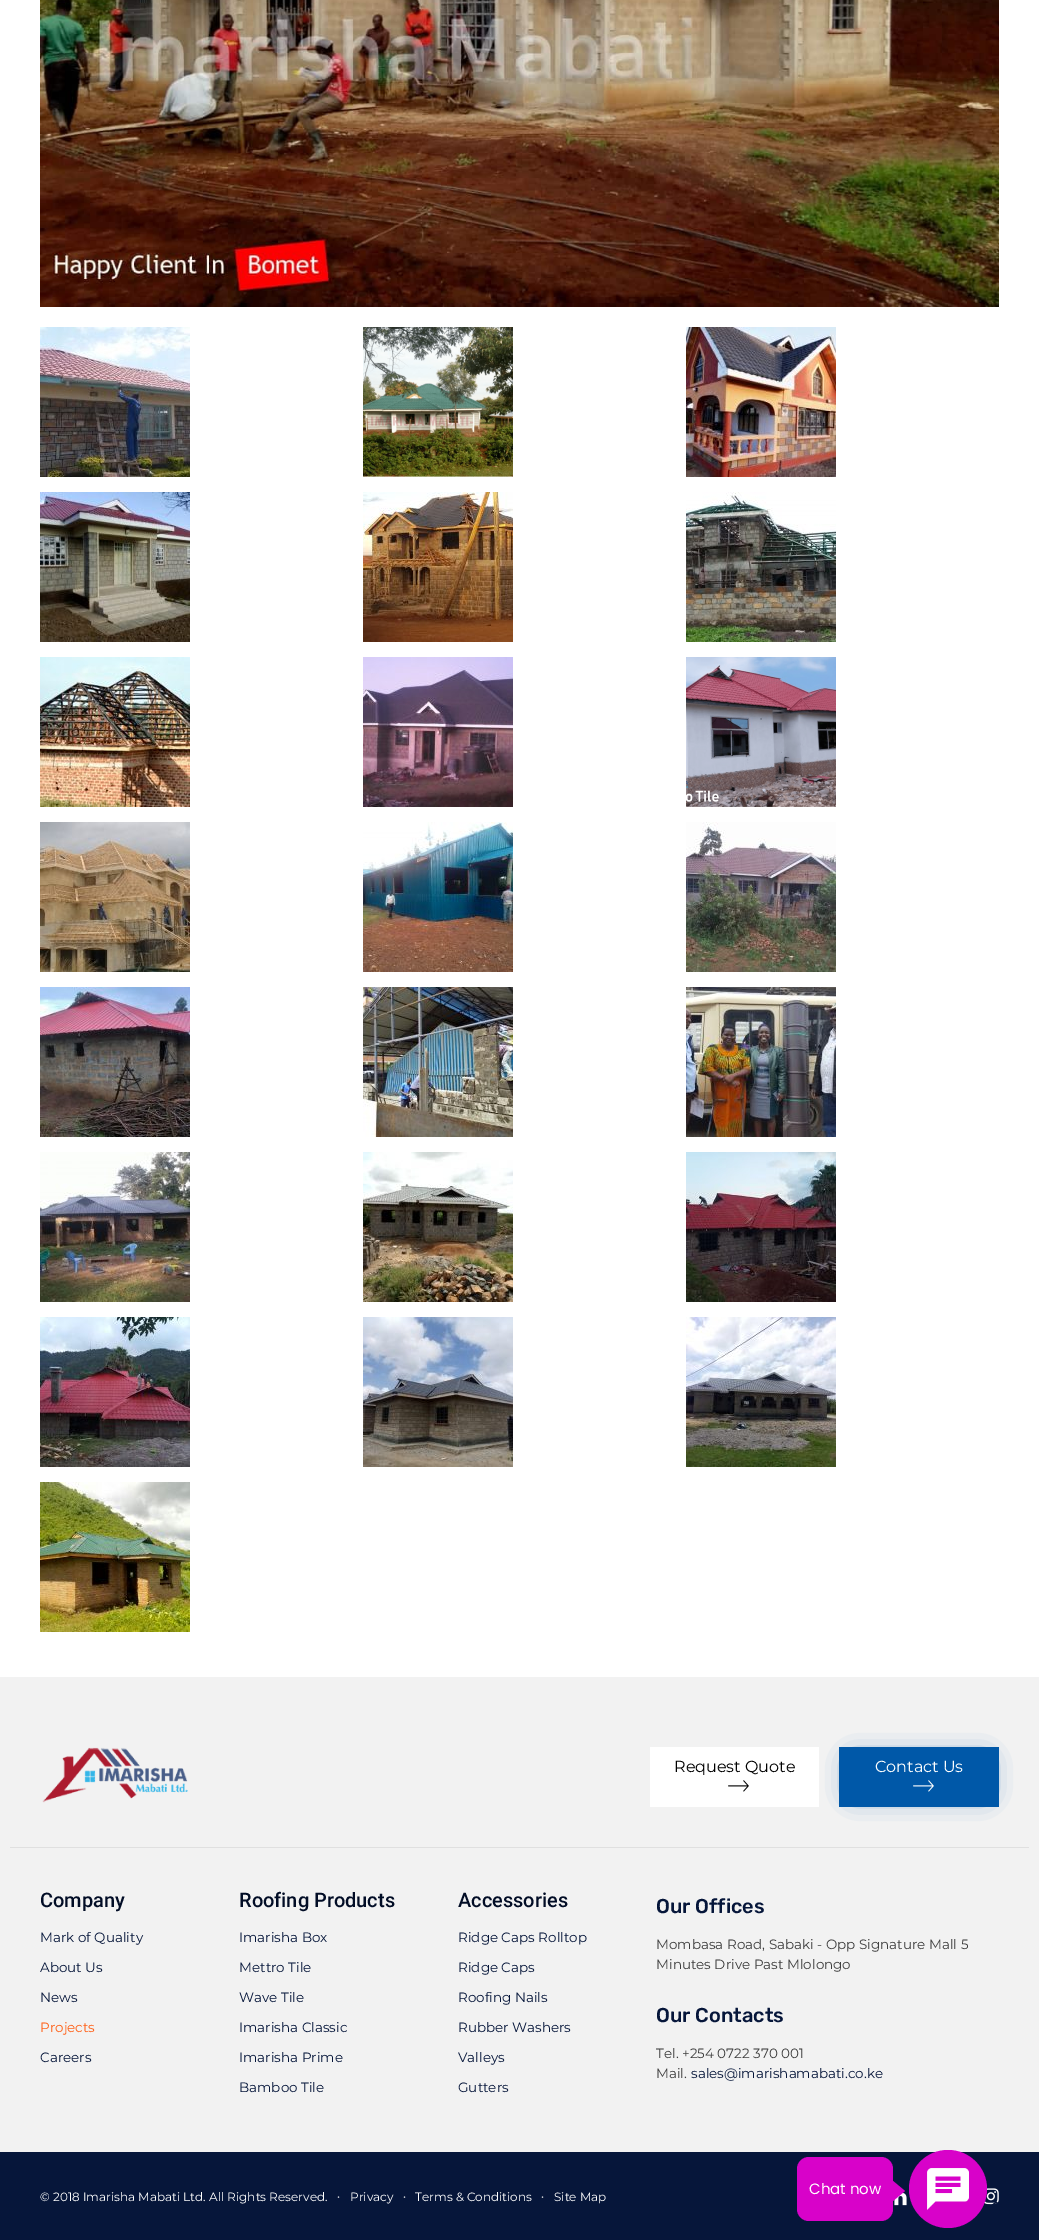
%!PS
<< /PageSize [1039 2240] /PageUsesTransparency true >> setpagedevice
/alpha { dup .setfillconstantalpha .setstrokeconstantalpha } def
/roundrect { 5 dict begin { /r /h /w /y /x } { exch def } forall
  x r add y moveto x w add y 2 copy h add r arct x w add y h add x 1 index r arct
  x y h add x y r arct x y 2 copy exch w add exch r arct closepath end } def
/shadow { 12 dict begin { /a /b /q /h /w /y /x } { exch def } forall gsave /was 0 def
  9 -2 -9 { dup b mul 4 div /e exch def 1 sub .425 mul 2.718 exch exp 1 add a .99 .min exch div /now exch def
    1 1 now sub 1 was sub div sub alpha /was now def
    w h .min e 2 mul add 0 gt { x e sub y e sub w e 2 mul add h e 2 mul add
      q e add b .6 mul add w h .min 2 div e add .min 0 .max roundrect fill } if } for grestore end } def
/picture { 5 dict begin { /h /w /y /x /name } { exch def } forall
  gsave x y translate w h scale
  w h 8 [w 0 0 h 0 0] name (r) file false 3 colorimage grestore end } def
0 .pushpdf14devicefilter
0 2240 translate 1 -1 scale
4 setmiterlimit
0.949 setgray
0 0 1039 2240 rectfill
1 setgray
0 0 1039 1677 rectfill
(img1.rgb) 40 0 959 307 picture
(img2.rgb) 40 327 150 150 picture
(img3.rgb) 363 327 150 150 picture
(img4.rgb) 686 327 150 150 picture
(img5.rgb) 40 492 150 150 picture
(img6.rgb) 363 492 150 150 picture
(img7.rgb) 686 492 150 150 picture
(img8.rgb) 40 657 150 150 picture
(img9.rgb) 363 657 150 150 picture
(img10.rgb) 686 657 150 150 picture
(img11.rgb) 40 822 150 150 picture
(img12.rgb) 363 822 150 150 picture
(img13.rgb) 686 822 150 150 picture
(img14.rgb) 40 987 150 150 picture
(img15.rgb) 363 987 150 150 picture
(img16.rgb) 686 987 150 150 picture
(img17.rgb) 40 1152 150 150 picture
(img18.rgb) 363 1152 150 150 picture
(img19.rgb) 686 1152 150 150 picture
(img20.rgb) 40 1317 150 150 picture
(img21.rgb) 363 1317 150 150 picture
(img22.rgb) 686 1317 150 150 picture
(img23.rgb) 40 1482 150 150 picture
(img24.rgb) 42 1747 146 56 picture
650 1747 169 60 rectfill
/Montserrat-Regular [16 0 0 -16 0 0] selectfont
0 setgray
674 1772 moveto (Request Quote) show
(img25.rgb) 728 1780 21 12 picture
0 0.345 0.659 setrgbcolor
853 1761 132 32 0 12.5 1 shadow
839 1747 160 60 rectfill
1 setgray
875 1772 moveto (Contact Us) show
(img26.rgb) 913 1780 21 12 picture
0.878 setgray
10 1847 1019 1 rectfill
/Roboto-Medium [20 0 0 -20 0 0] selectfont
0.008 0.051 0.149 setrgbcolor
40 1907 moveto (Company) show
/Montserrat-Regular [13.5 0 0 -13.5 0 0] selectfont
0.024 0.086 0.227 setrgbcolor
40 1942 moveto (Mark of Quality) show
40 1972 moveto (About Us) show
40 2002 moveto (News) show
1 0.369 0.078 setrgbcolor
40 2032 moveto (Projects) show
0.024 0.086 0.227 setrgbcolor
40 2062 moveto (Careers) show
/Roboto-Medium [20 0 0 -20 0 0] selectfont
0.008 0.051 0.149 setrgbcolor
239 1907 moveto (Roofing Products) show
/Montserrat-Regular [13.5 0 0 -13.5 0 0] selectfont
0.024 0.086 0.227 setrgbcolor
239 1942 moveto (Imarisha Box) show
239 1972 moveto (Mettro Tile) show
239 2002 moveto (Wave Tile) show
239 2032 moveto (Imarisha Classic) show
239 2062 moveto (Imarisha Prime) show
239 2092 moveto (Bamboo Tile) show
/Roboto-Medium [20 0 0 -20 0 0] selectfont
0.008 0.051 0.149 setrgbcolor
458 1907 moveto (Accessories) show
/Montserrat-Regular [13.5 0 0 -13.5 0 0] selectfont
0.024 0.086 0.227 setrgbcolor
458 1942 moveto (Ridge Caps Rolltop) show
458 1972 moveto (Ridge Caps) show
458 2002 moveto (Roofing Nails) show
458 2032 moveto (Rubber Washers) show
458 2062 moveto (Valleys) show
458 2092 moveto (Gutters) show
/Rubik-Light [20 0 0 -20 0 0] selectfont
656 1913 moveto (Our Offices) show
/Montserrat-Regular [13.5 0 0 -13.5 0 0] selectfont
0.239 setgray
656 1949 moveto (Mombasa Road, Sabaki - Opp Signature Mall 5) show
656 1969 moveto (Minutes Drive Past Mlolongo) show
/Rubik-Light [20 0 0 -20 0 0] selectfont
0.024 0.086 0.227 setrgbcolor
656 2022 moveto (Our Contacts) show
/Montserrat-Regular [13.5 0 0 -13.5 0 0] selectfont
0.239 setgray
656 2058 moveto (Tel. +254 0722 370 001) show
656 2078 moveto (Mail.) show
0.024 0.086 0.227 setrgbcolor
691 2078 moveto (sales@imarishamabati.co.ke) show
0 2152 1039 88 rectfill
/Montserrat-Regular [12 0 0 -12 0 0] selectfont
1 setgray
40 2201 moveto (© 2018 Imarisha Mabati Ltd. All Rights Reserved.) show
/LiberationSerif-Regular [12 0 0 -12 0 0] selectfont
337 2201 moveto (∙) show
/Montserrat-Regular [12 0 0 -12 0 0] selectfont
350 2201 moveto (Privacy) show
/LiberationSerif-Regular [12 0 0 -12 0 0] selectfont
403 2201 moveto (∙) show
/Montserrat-Regular [12 0 0 -12 0 0] selectfont
415 2201 moveto (Terms & Conditions) show
/LiberationSerif-Regular [12 0 0 -12 0 0] selectfont
541 2201 moveto (∙) show
/Montserrat-Regular [12 0 0 -12 0 0] selectfont
554 2201 moveto (Site Map) show
(img27.rgb) 894 2192 13 14 picture
(img28.rgb) 984 2188 15 17 picture
0.847 0.008 0.788 setrgbcolor
newpath 948 2189 39 0 360 arc closepath fill
797 2157 96 64 12 roundrect fill
/Poppins-Regular [15 0 0 -15 0 0] selectfont
1 setgray
809 2194 moveto (Chat now) show
0.847 0.008 0.788 setrgbcolor
newpath 893 2201 moveto 893 2181 lineto 905 2191 lineto closepath fill
(img29.rgb) 927 2168 42 42 picture
(img30.rgb) 991 2201 7 4 picture
.poppdf14devicefilter showpage
